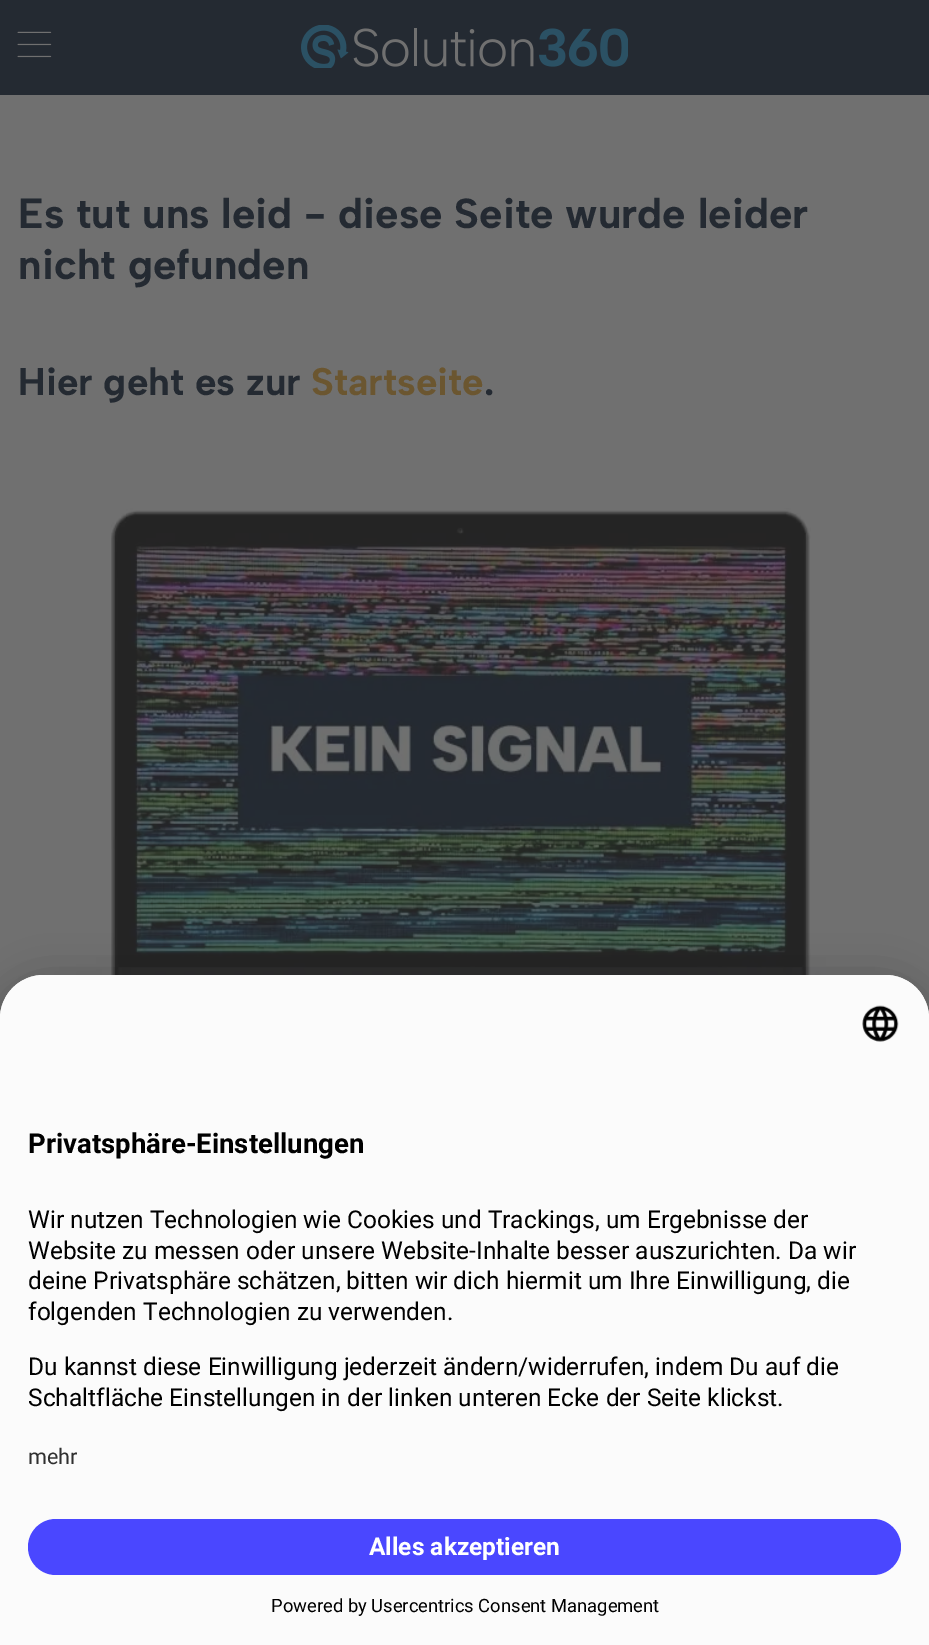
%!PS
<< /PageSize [929 1645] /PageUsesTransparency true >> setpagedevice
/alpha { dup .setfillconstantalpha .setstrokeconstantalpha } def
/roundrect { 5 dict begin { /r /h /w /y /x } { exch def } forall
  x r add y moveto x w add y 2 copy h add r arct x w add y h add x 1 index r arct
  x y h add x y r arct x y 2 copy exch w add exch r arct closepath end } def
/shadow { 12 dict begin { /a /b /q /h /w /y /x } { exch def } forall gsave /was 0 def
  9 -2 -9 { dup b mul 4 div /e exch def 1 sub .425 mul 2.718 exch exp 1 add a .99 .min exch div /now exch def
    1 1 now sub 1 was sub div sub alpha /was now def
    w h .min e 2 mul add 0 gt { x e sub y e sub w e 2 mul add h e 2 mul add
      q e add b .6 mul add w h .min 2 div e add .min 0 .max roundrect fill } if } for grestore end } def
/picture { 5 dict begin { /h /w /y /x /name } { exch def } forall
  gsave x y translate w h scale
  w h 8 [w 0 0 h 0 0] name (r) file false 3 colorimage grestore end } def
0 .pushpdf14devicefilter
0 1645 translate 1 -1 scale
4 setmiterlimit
0.439 setgray
0 0 929 1645 rectfill
0.141 0.165 0.196 setrgbcolor
0 0 929 95 rectfill
(img1.rgb) 17 31 35 27 picture
(img2.rgb) 301 25 327 43 picture
/AlbertSans-Bold [42 0 0 -42 0 0] selectfont
18 228 moveto (Es tut uns leid - diese Seite wurde leider) show
18 279 moveto (nicht gefunden) show
/AlbertSans-Bold [38.5 0 0 -38.5 0 0] selectfont
18 395 moveto (Hier geht es zur) show
0.42 0.337 0.188 setrgbcolor
311 395 moveto (Startseite) show
0.141 0.165 0.196 setrgbcolor
484 395 moveto (.) show
(img3.rgb) 18 508 893 476 picture
0 setgray
0 1010 929 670 44 24.5 0.3 shadow
0 984 929 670 44 23 0.22 shadow
0.984 setgray
newpath 44 975 moveto 885 975 lineto 909.5 975 929 994.5 929 1019 curveto 929 1645 lineto 0 1645 lineto 0 1019 lineto 0 994.5 19.5 975 44 975 curveto closepath fill
newpath 44 975 moveto 885 975 lineto 909.5 975 929 994.5 929 1019 curveto 929 1498 lineto 0 1498 lineto 0 1019 lineto 0 994.5 19.5 975 44 975 curveto closepath fill
(img4.rgb) 862 1005 37 37 picture
/Roboto-Bold [27.5 0 0 -27.5 0 0] selectfont
0 setgray
28 1153 moveto (Privatsphäre-Einstellungen) show
/Roboto-Regular [24.5 0 0 -24.5 0 0] selectfont
28 1228 moveto (Wir nutzen Technologien wie Cookies und Trackings, um Ergebnisse der) show
28 1259 moveto (Website zu messen oder unsere Website-Inhalte besser auszurichten. Da wir) show
28 1289 moveto (deine Privatsphäre schätzen, bitten wir dich hiermit um Ihre Einwilligung, die) show
28 1320 moveto (folgenden Technologien zu verwenden.) show
28 1375 moveto (Du kannst diese Einwilligung jederzeit ändern/widerrufen, indem Du auf die) show
28 1406 moveto (Schaltfläche Einstellungen in der linken unteren Ecke der Seite klickst.) show
/Roboto-Regular [21.5 0 0 -21.5 0 0] selectfont
0.188 setgray
28 1464 moveto (mehr) show
0.29 0.278 1 setrgbcolor
28 1519 873 56 28 roundrect fill
/Roboto-Bold [24.5 0 0 -24.5 0 0] selectfont
1 setgray
369 1555 moveto (Alles akzeptieren) show
/Roboto-Regular [18.4 0 0 -18.4 0 0] selectfont
0 setgray
271 1612 moveto (Powered by Usercentrics Consent Management) show
.poppdf14devicefilter showpage
